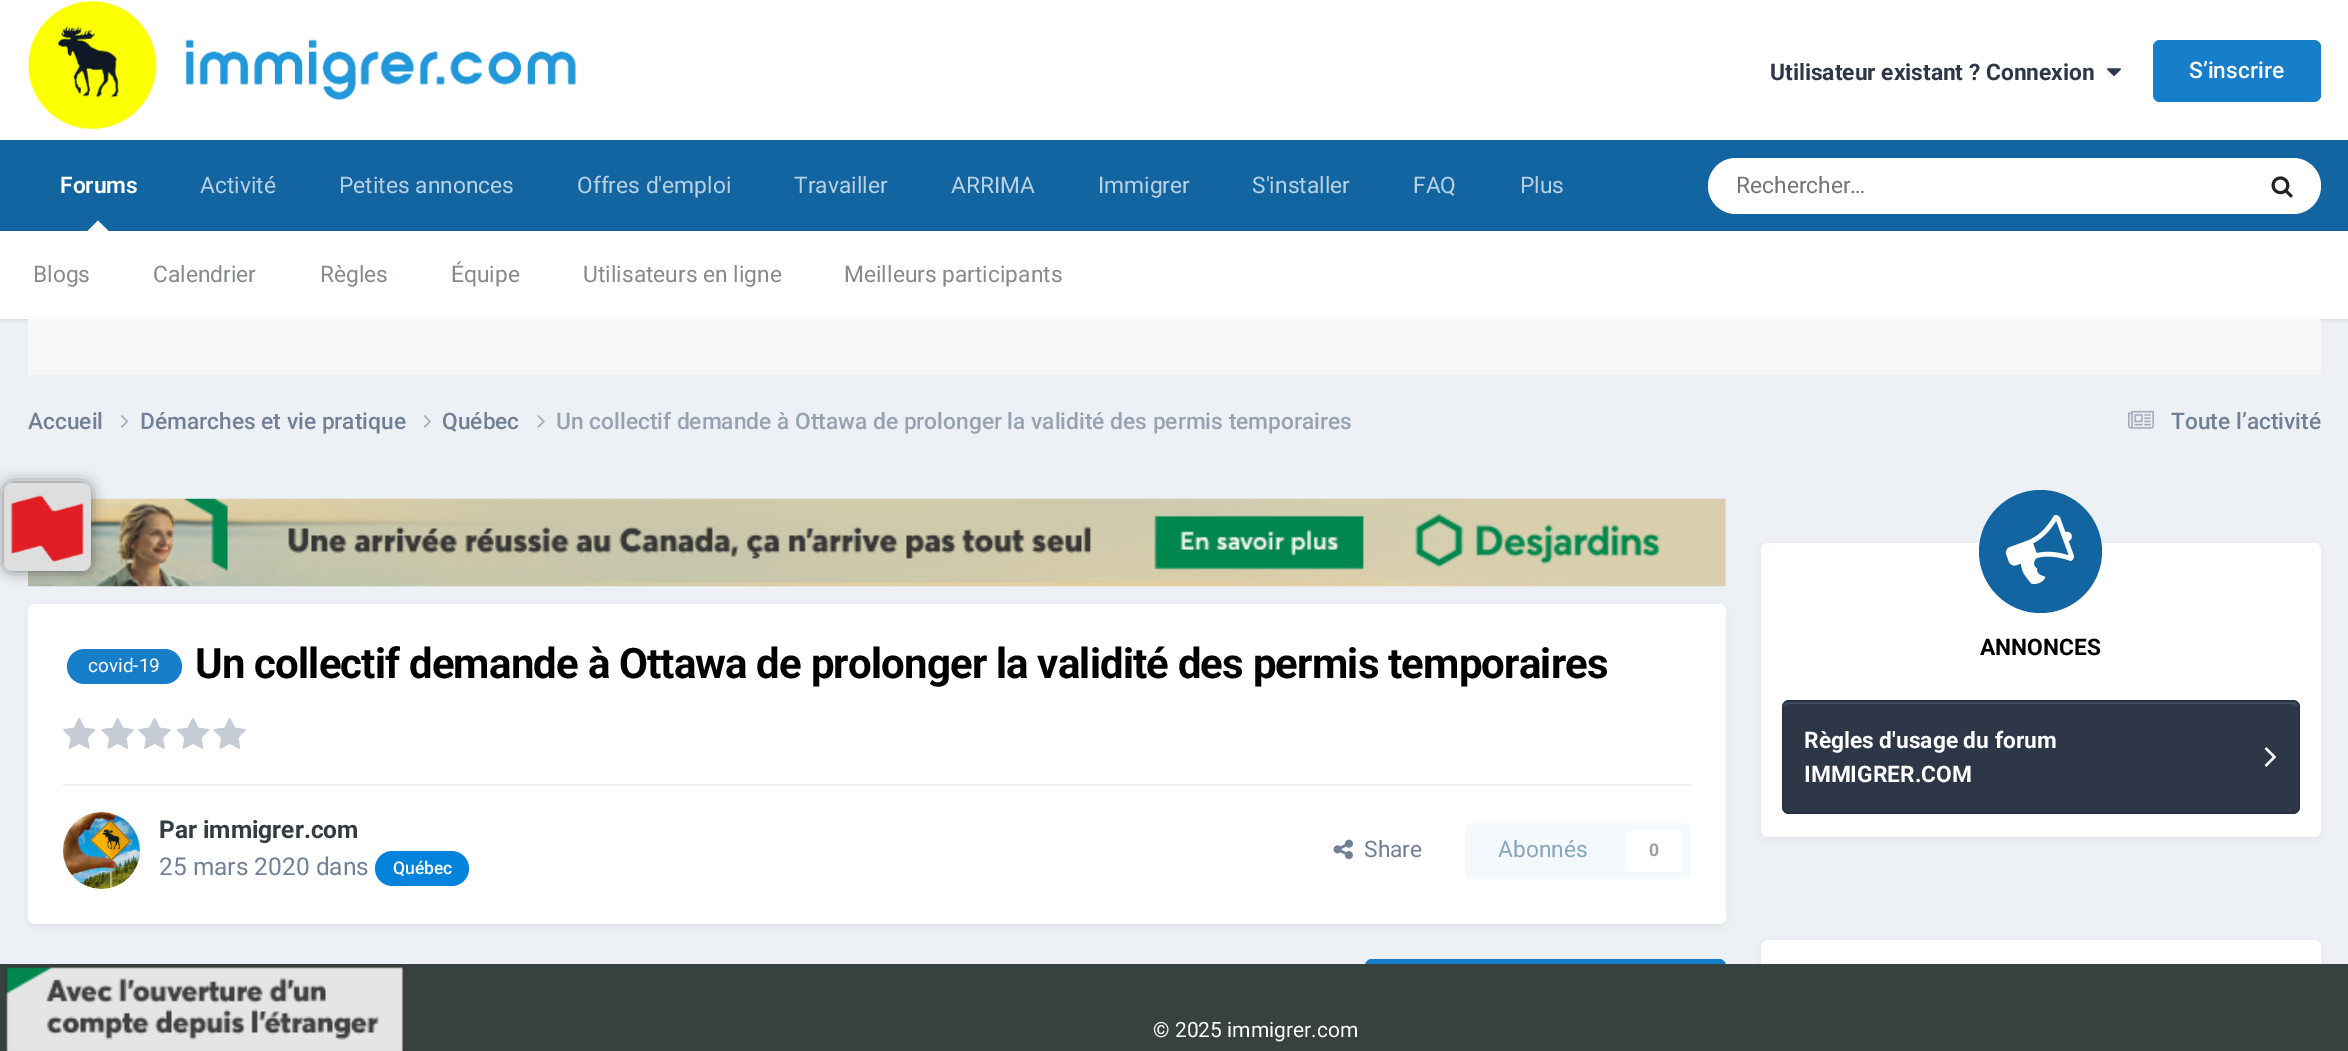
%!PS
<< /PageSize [2348 1051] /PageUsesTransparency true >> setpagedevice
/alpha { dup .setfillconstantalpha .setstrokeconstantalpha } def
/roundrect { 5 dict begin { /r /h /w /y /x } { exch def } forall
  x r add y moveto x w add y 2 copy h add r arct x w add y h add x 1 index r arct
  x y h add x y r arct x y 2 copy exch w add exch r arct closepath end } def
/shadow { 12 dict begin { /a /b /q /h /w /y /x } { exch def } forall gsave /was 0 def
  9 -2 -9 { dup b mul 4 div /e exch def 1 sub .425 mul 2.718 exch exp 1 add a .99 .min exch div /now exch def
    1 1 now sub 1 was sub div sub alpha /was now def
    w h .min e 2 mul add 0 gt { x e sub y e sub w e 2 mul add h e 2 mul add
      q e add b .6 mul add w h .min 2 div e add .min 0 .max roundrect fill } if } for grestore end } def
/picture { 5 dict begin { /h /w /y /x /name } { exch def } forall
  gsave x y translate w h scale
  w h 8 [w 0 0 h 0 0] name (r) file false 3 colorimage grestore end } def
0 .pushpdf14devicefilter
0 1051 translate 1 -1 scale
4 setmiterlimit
0.929 0.941 0.957 setrgbcolor
0 0 2348 1051 rectfill
1 setgray
0 0 2348 140 rectfill
(img1.rgb) 28 1 548 129 picture
/Roboto-Bold [22.75 0 0 -22.75 0 0] selectfont
0.176 0.216 0.282 setrgbcolor
1770 80 moveto (Utilisateur existant ? Connexion) show
(img2.rgb) 2107 68 14 8 picture
0.09 0.494 0.788 setrgbcolor
2153 40 168 62 7 roundrect fill
/Roboto-Medium [22.75 0 0 -22.75 0 0] selectfont
1 setgray
2189 78 moveto (S’inscrire) show
0.071 0.396 0.631 setrgbcolor
0 140 2348 91 rectfill
/Roboto-Regular [22.75 0 0 -22.75 0 0] selectfont
0.722 0.82 0.89 setrgbcolor
200 193 moveto (Activité) show
577 193 moveto (Offres d'emploi) show
794 193 moveto (Travailler) show
1252 193 moveto (S'installer) show
1520 193 moveto (Plus) show
/Roboto-SemiBold [22.75 0 0 -22.75 0 0] selectfont
1 setgray
60 193 moveto (Forums) show
0 setgray
0 233 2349 87 0 2 0.1 shadow
1 setgray
newpath 108.5 231 moveto 87.5 231 lineto 98 220.5 lineto closepath fill
0 231 2348 88 rectfill
/Roboto-Regular [22.75 0 0 -22.75 0 0] selectfont
0.525 0.541 0.553 setrgbcolor
33 282 moveto (Blogs) show
153 282 moveto (Calendrier) show
320 282 moveto (Règles) show
451 282 moveto (Équipe) show
583 282 moveto (Utilisateurs en ligne) show
844 282 moveto (Meilleurs participants) show
0.722 0.82 0.89 setrgbcolor
339 193 moveto (Petites annonces) show
951 193 moveto (ARRIMA) show
1098 193 moveto (Immigrer) show
1413 193 moveto (FAQ) show
1 setgray
1708 158 613 56 28 roundrect fill
0.459 setgray
1736 193 moveto (Rechercher…) show
(img3.rgb) 2271 176 22 22 picture
0.973 setgray
28 319 2293 56 rectfill
/Roboto-Medium [22.75 0 0 -22.75 0 0] selectfont
0.443 0.502 0.588 setrgbcolor
28 429 moveto (Accueil) show
(img4.rgb) 121 415 8 13 picture
140 429 moveto (Démarches et vie pratique) show
(img5.rgb) 423 415 8 13 picture
442 429 moveto (Québec) show
(img6.rgb) 537 415 8 13 picture
0.588 0.635 0.698 setrgbcolor
556 429 moveto (Un collectif demande à Ottawa de prolonger la validité des permis temporaires) show
(img7.rgb) 2128 410 26 19 picture
0.443 0.502 0.588 setrgbcolor
2171 429 moveto (Toute l’activité) show
(img8.rgb) 28 498 1698 89 picture
0.176 0.216 0.282 setrgbcolor
30 609 1694 317 5 3.5 0.1 shadow
1 setgray
28 604 1698 320 7 roundrect fill
0.09 0.494 0.788 setrgbcolor
67 649 115 35 17.5 roundrect fill
/Roboto-Regular [19 0 0 -19 0 0] selectfont
1 setgray
88 672 moveto (covid-19) show
/Roboto-Bold [42 0 0 -42 0 0] selectfont
0 setgray
195 678 moveto -0.85 0 (Un collectif demande à Ottawa de prolonger la validité des permis temporaires) ashow
(img9.rgb) 63 718 33 31 picture
(img10.rgb) 101 718 33 31 picture
(img11.rgb) 138 718 33 31 picture
(img12.rgb) 176 718 34 31 picture
(img10.rgb) 213 718 33 31 picture
0.937 0.937 0.941 setrgbcolor
63 784 1628 2 rectfill
(img13.rgb) 63 812 77 77 picture
/Roboto-Bold [24.5 0 0 -24.5 0 0] selectfont
0.208 0.235 0.255 setrgbcolor
159 838 moveto (Par immigrer.com) show
/Roboto-Regular [24.5 0 0 -24.5 0 0] selectfont
0.443 0.502 0.588 setrgbcolor
159 875 moveto (25 mars 2020 dans) show
0.012 0.514 0.863 setrgbcolor
375 851 94 35 17.5 roundrect fill
/Roboto-Medium [17.5 0 0 -17.5 0 0] selectfont
1 setgray
393 874 moveto (Québec) show
(img14.rgb) 1333 839 20 21 picture
/Roboto-Regular [22.75 0 0 -22.75 0 0] selectfont
0.443 0.502 0.588 setrgbcolor
1364 857 moveto (Share) show
0.957 0.976 0.992 setrgbcolor
1465 823 226 56 7 roundrect fill
0.529 0.651 0.737 setrgbcolor
1498 857 moveto (Abonnés) show
1 setgray
1626 830 56 42 7 roundrect fill
/Roboto-Bold [17.5 0 0 -17.5 0 0] selectfont
0.604 0.62 0.627 setrgbcolor
1649 856 moveto (0) show
0.09 0.494 0.788 setrgbcolor
1365 959 361 77 7 roundrect fill
0.176 0.216 0.282 setrgbcolor
1762 548 557 290 5 3.5 0.1 shadow
1 setgray
1761 543 560 294 7 roundrect fill
0.071 0.396 0.631 setrgbcolor
newpath 2040.5 551.5 61.5 0 360 arc closepath fill
(img15.rgb) 2005 515 69 69 picture
/Roboto-Bold [22.75 0 0 -22.75 0 0] selectfont
0 setgray
1980 655 moveto (ANNONCES) show
0.176 0.216 0.282 setrgbcolor
1782 700 518 114 7 roundrect fill
0.259 0.294 0.353 setrgbcolor
newpath 1788 704 moveto 2292 704 lineto 2295 704 2298 706 2298 709 curveto 2298 707 lineto 2298 704 2296 702 2293 702 curveto 1788 702 lineto 1785 702 1783 704 1783 707 curveto 1783 709 lineto 1783 706 1786 704 1788 704 curveto closepath fill
0.1 alpha
0 setgray
2 setlinewidth
1783 701 516 112 6 roundrect stroke
1 alpha
1 setgray
1804 748 moveto (Règles d'usage du forum) show
(img16.rgb) 2264 747 12 20 picture
1804 782 moveto (IMMIGRER.COM) show
0.176 0.216 0.282 setrgbcolor
1762 945 557 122 5 3.5 0.1 shadow
1 setgray
newpath 1768 940 moveto 2314 940 lineto 2318 940 2321 943 2321 947 curveto 2321 1026 lineto 1761 1026 lineto 1761 947 lineto 1761 943 1764 940 1768 940 curveto closepath fill
0 setgray
4 483 87 88 9 7 0.5 shadow
0.871 setgray
4 483 87 88 9 roundrect fill
(img17.rgb) 10 495 74 67 picture
0.216 0.255 0.251 setrgbcolor
0 964 2348 87 rectfill
(img18.rgb) 5 966 399 85 picture
/Roboto-Regular [21 0 0 -21 0 0] selectfont
1 setgray
1153 1037 moveto (© 2025 immigrer.com) show
.poppdf14devicefilter showpage
